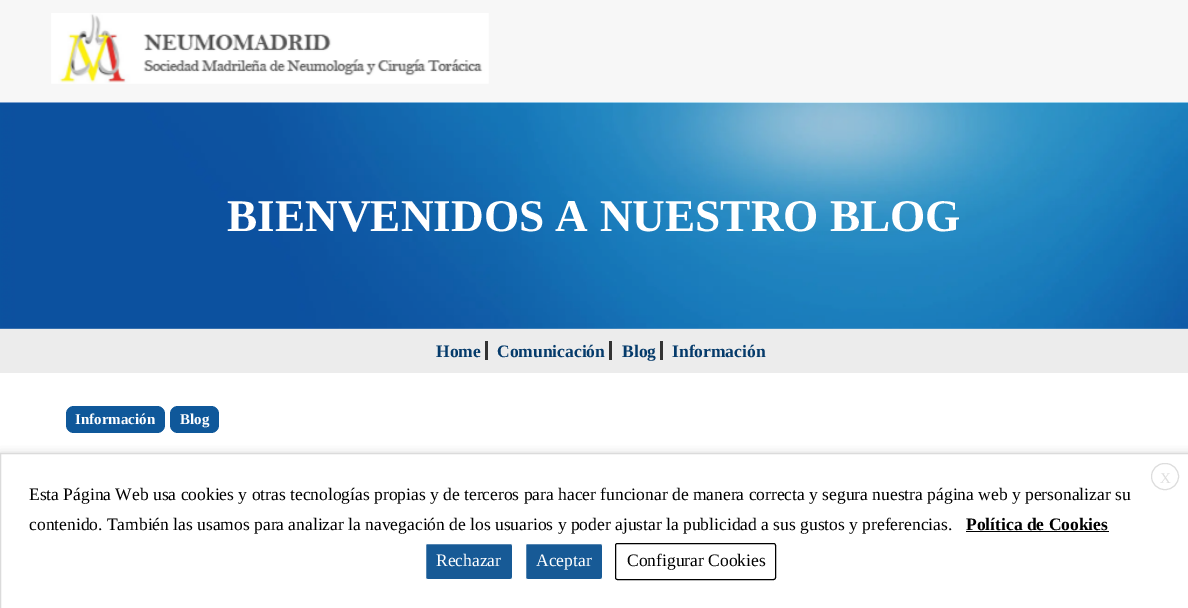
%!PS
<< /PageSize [1188 608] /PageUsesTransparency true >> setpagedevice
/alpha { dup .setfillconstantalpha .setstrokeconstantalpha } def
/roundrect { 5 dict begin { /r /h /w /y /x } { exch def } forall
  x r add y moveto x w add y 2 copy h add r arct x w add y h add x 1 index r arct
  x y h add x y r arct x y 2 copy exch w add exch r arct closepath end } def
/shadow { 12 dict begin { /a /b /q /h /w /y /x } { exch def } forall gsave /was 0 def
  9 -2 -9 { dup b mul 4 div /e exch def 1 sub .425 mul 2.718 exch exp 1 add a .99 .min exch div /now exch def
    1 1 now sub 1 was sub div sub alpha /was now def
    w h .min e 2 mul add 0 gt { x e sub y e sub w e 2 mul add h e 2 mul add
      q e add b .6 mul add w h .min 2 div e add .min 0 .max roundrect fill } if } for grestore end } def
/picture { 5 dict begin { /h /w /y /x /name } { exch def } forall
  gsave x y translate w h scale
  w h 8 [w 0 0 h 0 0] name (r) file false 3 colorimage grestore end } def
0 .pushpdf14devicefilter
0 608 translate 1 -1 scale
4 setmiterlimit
1 setgray
0 0 1188 608 rectfill
0.969 setgray
0 0 1188 103 rectfill
(img1.rgb) 51 13 438 71 picture
(img2.rgb) 0 102 1188 227 picture
/LiberationSerif-Bold [45.3 0 0 -45.3 0 0] selectfont
1 setgray
227 231 moveto (BIENVENIDOS A NUESTRO BLOG) show
0.925 setgray
0 329 1188 44 rectfill
/LiberationSerif-Bold [17.5 0 0 -17.5 0 0] selectfont
0.02 0.231 0.42 setrgbcolor
436 357 moveto (Home) show
0.2 setgray
485 341 3 19 rectfill
0.02 0.231 0.42 setrgbcolor
497 357 moveto (Comunicación) show
0.2 setgray
609 341 3 19 rectfill
0.02 0.231 0.42 setrgbcolor
622 357 moveto (Blog) show
0.2 setgray
660 341 3 19 rectfill
0.02 0.231 0.42 setrgbcolor
672 357 moveto (Información) show
0.059 0.345 0.604 setrgbcolor
66 406 99 27 8 roundrect fill
/LiberationSerif-Bold [15 0 0 -15 0 0] selectfont
1 setgray
75 424 moveto (Información) show
0.059 0.345 0.604 setrgbcolor
170 406 49 27 8 roundrect fill
1 setgray
180 424 moveto (Blog) show
0 setgray
0 459 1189 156 0 6 0.5 shadow
1 setgray
newpath 0.5 453.5 moveto 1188.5 453.5 lineto 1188.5 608.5 lineto 0.5 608.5 lineto closepath gsave fill grestore
0.859 setgray
stroke
0.867 setgray
1151.5 463.5 27 26 13 roundrect stroke
/LiberationSerif-Regular [15 0 0 -15 0 0] selectfont
1160 483 moveto (X) show
/LiberationSerif-Regular [17.5 0 0 -17.5 0 0] selectfont
0 setgray
29 500 moveto (Esta Página Web usa cookies y otras tecnologías propias y de terceros para hacer funcionar de manera correcta y segura nuestra página web y personalizar su) show
29 530 moveto (contenido. También las usamos para analizar la navegación de los usuarios y poder ajustar la publicidad a sus gustos y preferencias.) show
/LiberationSerif-Bold [17.5 0 0 -17.5 0 0] selectfont
966 530 moveto (Política de Cookies) show
966 531 143 1 rectfill
0.09 0.353 0.588 setrgbcolor
425.5 543.5 87 36 2 roundrect gsave fill grestore
1 setgray
stroke
/LiberationSerif-Regular [17.5 0 0 -17.5 0 0] selectfont
436 566 moveto (Rechazar) show
0.09 0.353 0.588 setrgbcolor
525.5 543.5 77 36 2 roundrect gsave fill grestore
1 setgray
stroke
536 566 moveto (Aceptar) show
0 setgray
615.5 543.5 160 36 2 roundrect stroke
627 566 moveto (Configurar Cookies) show
.poppdf14devicefilter showpage
